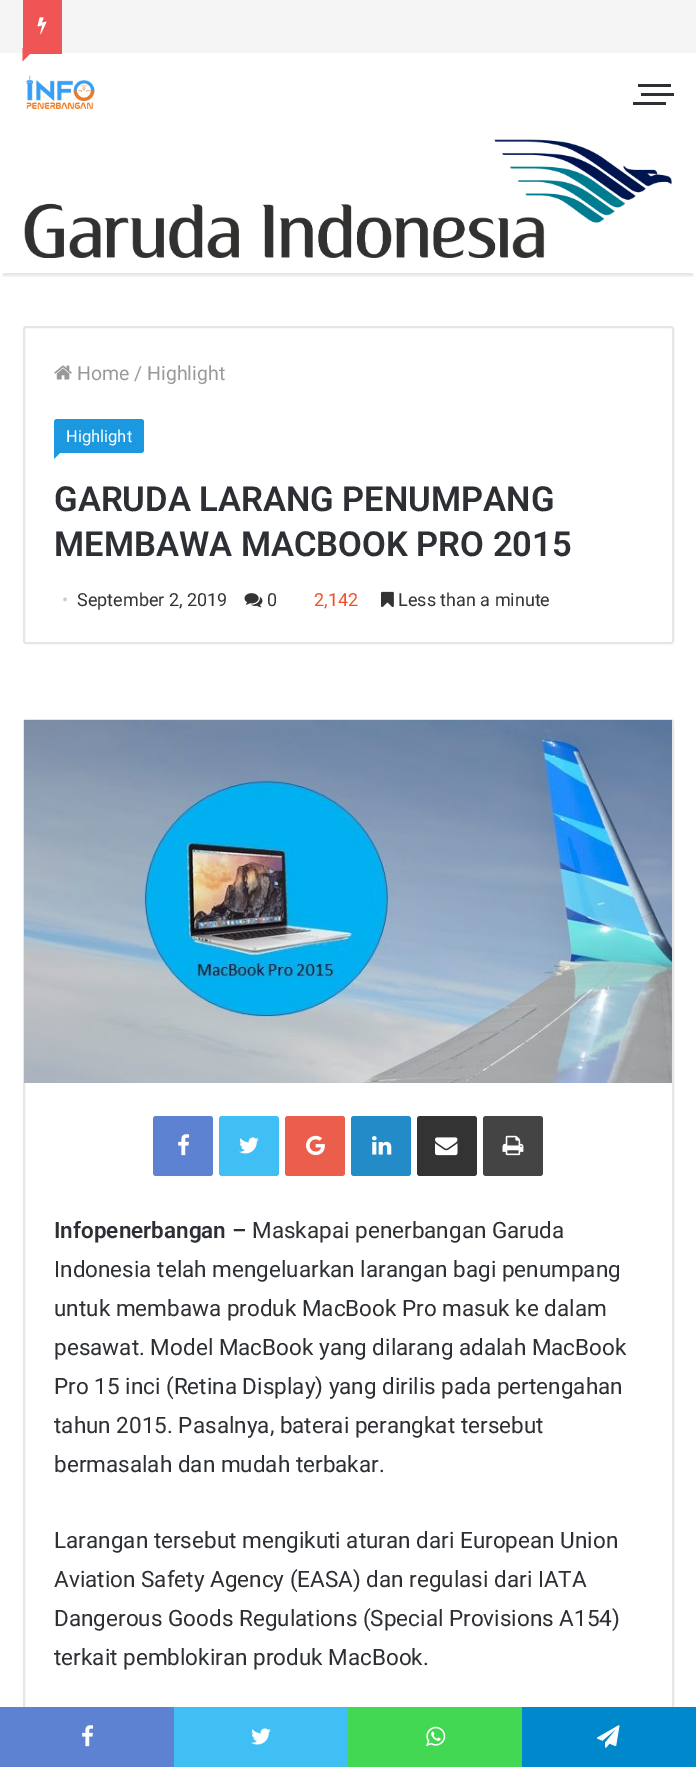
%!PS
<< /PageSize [696 1767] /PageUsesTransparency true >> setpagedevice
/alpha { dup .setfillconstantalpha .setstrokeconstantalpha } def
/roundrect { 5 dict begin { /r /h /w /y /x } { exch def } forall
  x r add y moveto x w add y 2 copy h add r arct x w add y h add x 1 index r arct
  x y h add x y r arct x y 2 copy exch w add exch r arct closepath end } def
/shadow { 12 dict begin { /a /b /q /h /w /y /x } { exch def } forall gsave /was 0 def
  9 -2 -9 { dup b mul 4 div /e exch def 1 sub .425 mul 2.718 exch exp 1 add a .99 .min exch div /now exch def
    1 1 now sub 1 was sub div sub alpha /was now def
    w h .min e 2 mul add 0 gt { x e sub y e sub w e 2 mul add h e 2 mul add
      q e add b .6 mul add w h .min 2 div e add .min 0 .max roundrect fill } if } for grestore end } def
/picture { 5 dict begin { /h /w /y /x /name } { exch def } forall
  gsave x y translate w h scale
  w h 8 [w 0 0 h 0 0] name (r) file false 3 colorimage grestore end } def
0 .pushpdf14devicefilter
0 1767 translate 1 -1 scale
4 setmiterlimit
1 setgray
0 0 696 1767 rectfill
gsave
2 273 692 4 rectclip
0 setgray
3 9 690 267 0 1.5 0.1 shadow
grestore
0.961 setgray
0 0 696 53 rectfill
0.941 0.333 0.333 setrgbcolor
23 0 39 54 rectfill
(img1.rgb) 37 17 10 17 picture
newpath 22.5 48 moveto 36 48 lineto 22.5 61.5 lineto closepath fill
(img2.rgb) 26 75 69 34 picture
0.173 0.184 0.204 setrgbcolor
641 93 33 3 rectfill
638 84 33 3 rectfill
633 102 33 3 rectfill
(img3.rgb) 24 139 648 119 picture
0.902 setgray
2 setlinewidth
24 327 649 316 2 roundrect stroke
(img4.rgb) 54 365 18 15 picture
/Roboto-Regular [19.5 0 0 -19.5 0 0] selectfont
0.6 setgray
77 380 moveto (Home) show
134 380 moveto (/) show
147 380 moveto (Highlight) show
0.106 0.596 0.878 setrgbcolor
newpath 57 419 moveto 141 419 lineto 142.5 419 144 420.5 144 422 curveto 144 450 lineto 144 451.5 142.5 453 141 453 curveto 54 453 lineto 54 422 lineto 54 420.5 55.5 419 57 419 curveto closepath fill
/Roboto-Regular [16.5 0 0 -16.5 0 0] selectfont
1 setgray
66 442 moveto (Highlight) show
0.106 0.596 0.878 setrgbcolor
newpath 54 453 moveto 60 453 lineto 54 459 lineto closepath fill
/Roboto-SemiBold [34.5 0 0 -34.5 0 0] selectfont
0.173 0.184 0.204 setrgbcolor
54 511 moveto (GARUDA LARANG PENUMPANG) show
54 556 moveto (MEMBAWA MACBOOK PRO 2015) show
/Roboto-Regular [18 0 0 -18 0 0] selectfont
0.8 setgray
62 606 moveto (•) show
0.2 setgray
77 606 moveto (September 2, 2019) show
(img5.rgb) 244 593 19 15 picture
267 606 moveto (0) show
0.953 0.314 0.165 setrgbcolor
314 606 moveto (2,142) show
(img6.rgb) 381 591 13 16 picture
0.2 setgray
398 606 moveto (Less than a minute) show
0.902 setgray
24 720 649 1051 2 roundrect stroke
(img7.rgb) 24 720 648 363 picture
0.365 0.51 0.82 setrgbcolor
153 1116 60 60 3 roundrect fill
(img8.rgb) 178 1134 12 22 picture
0.251 0.749 0.961 setrgbcolor
219 1116 60 60 3 roundrect fill
(img9.rgb) 239 1137 20 17 picture
0.922 0.369 0.298 setrgbcolor
285 1116 60 60 3 roundrect fill
(img10.rgb) 306 1135 19 21 picture
0.137 0.549 0.784 setrgbcolor
351 1116 60 60 3 roundrect fill
(img11.rgb) 372 1136 20 19 picture
0.2 setgray
417 1116 60 60 3 roundrect fill
(img12.rgb) 435 1137 23 19 picture
0.267 setgray
483 1116 60 60 3 roundrect fill
(img13.rgb) 502 1135 22 21 picture
/Roboto-SemiBold [22.5 0 0 -22.5 0 0] selectfont
0.173 0.184 0.204 setrgbcolor
54 1238 moveto (Infopenerbangan –) show
/Roboto-Regular [22.5 0 0 -22.5 0 0] selectfont
252 1238 moveto (Maskapai penerbangan Garuda) show
54 1277 moveto (Indonesia telah mengeluarkan larangan bagi penumpang) show
54 1316 moveto (untuk membawa produk MacBook Pro masuk ke dalam) show
54 1355 moveto (pesawat. Model MacBook yang dilarang adalah MacBook) show
54 1394 moveto (Pro 15 inci \(Retina Display\) yang dirilis pada pertengahan) show
54 1433 moveto (tahun 2015. Pasalnya, baterai perangkat tersebut) show
54 1472 moveto (bermasalah dan mudah terbakar.) show
54 1548 moveto (Larangan tersebut mengikuti aturan dari European Union) show
54 1587 moveto (Aviation Safety Agency \(EASA\) dan regulasi dari IATA) show
54 1626 moveto (Dangerous Goods Regulations \(Special Provisions A154\)) show
54 1665 moveto (terkait pemblokiran produk MacBook.) show
0.365 0.51 0.82 setrgbcolor
0 1707 174 60 rectfill
(img8.rgb) 82 1725 12 22 picture
0.251 0.749 0.961 setrgbcolor
174 1707 174 60 rectfill
(img9.rgb) 251 1728 20 17 picture
0.263 0.847 0.329 setrgbcolor
348 1707 174 60 rectfill
(img14.rgb) 426 1726 20 21 picture
0 0.533 0.8 setrgbcolor
522 1707 174 60 rectfill
(img15.rgb) 597 1725 23 23 picture
.poppdf14devicefilter showpage
